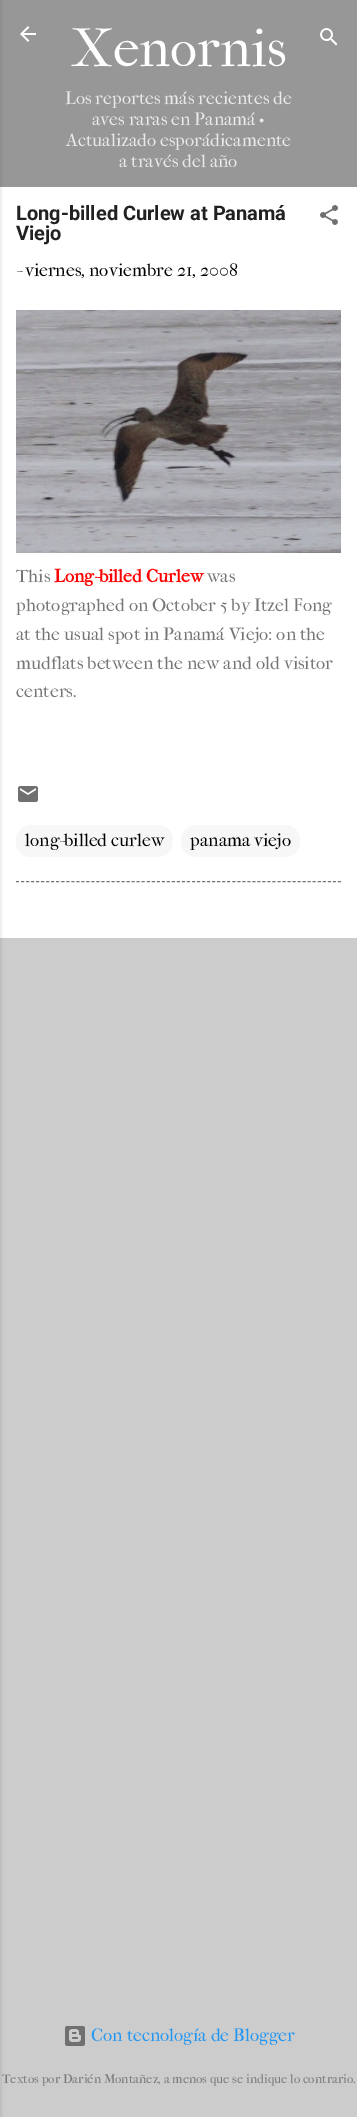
%!PS
<< /PageSize [357 2117] /PageUsesTransparency true >> setpagedevice
/alpha { dup .setfillconstantalpha .setstrokeconstantalpha } def
/roundrect { 5 dict begin { /r /h /w /y /x } { exch def } forall
  x r add y moveto x w add y 2 copy h add r arct x w add y h add x 1 index r arct
  x y h add x y r arct x y 2 copy exch w add exch r arct closepath end } def
/shadow { 12 dict begin { /a /b /q /h /w /y /x } { exch def } forall gsave /was 0 def
  9 -2 -9 { dup b mul 4 div /e exch def 1 sub .425 mul 2.718 exch exp 1 add a .99 .min exch div /now exch def
    1 1 now sub 1 was sub div sub alpha /was now def
    w h .min e 2 mul add 0 gt { x e sub y e sub w e 2 mul add h e 2 mul add
      q e add b .6 mul add w h .min 2 div e add .min 0 .max roundrect fill } if } for grestore end } def
/picture { 5 dict begin { /h /w /y /x /name } { exch def } forall
  gsave x y translate w h scale
  w h 8 [w 0 0 h 0 0] name (r) file false 3 colorimage grestore end } def
0 .pushpdf14devicefilter
0 2117 translate 1 -1 scale
4 setmiterlimit
0.8 setgray
0 0 357 2117 rectfill
0.592 setgray
0 0 357 187 rectfill
1 setgray
0 187 357 751 rectfill
0 setgray
-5 1 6 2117 0 1.5 0.1 shadow
(img1.rgb) 20 26 16 16 picture
/IMFELLFrenchCanon-Regular [53.5 0 0 -53.5 0 0] selectfont
1 setgray
71 66 moveto (Xenornis) show
/IMFELLFrenchCanon-Regular [18 0 0 -18 0 0] selectfont
0.918 setgray
65 104 moveto (Los reportes más recientes de) show
92 125 moveto (aves raras en Panamá •) show
66 146 moveto (Actualizado esporádicamente) show
119 167 moveto (a través del año) show
(img2.rgb) 320 28 18 18 picture
/Roboto-Bold [20 0 0 -20 0 0] selectfont
0.129 setgray
16 220 moveto (Long-billed Curlew at Panamá) show
16 240 moveto (Viejo) show
(img3.rgb) 320 205 18 20 picture
/IMFELLFrenchCanon-Regular [18 0 0 -18 0 0] selectfont
0 setgray
16 276 moveto (- viernes, noviembre 21, 2008) show
(img4.rgb) 16 310 325 243 picture
0.459 setgray
16 582 moveto (This) show
/IMFELLFrenchCanon-Bold [18 0 0 -18 0 0] selectfont
1 0 0 setrgbcolor
54 582 moveto (Long-billed Curlew) show
/IMFELLFrenchCanon-Regular [18 0 0 -18 0 0] selectfont
0.459 setgray
207 582 moveto (was) show
16 611 moveto (photographed on October 5 by Itzel Fong) show
16 640 moveto (at the usual spot in Panamá Viejo: on the) show
16 669 moveto (mudflats between the new and old visitor) show
16 697 moveto (centers.) show
(img5.rgb) 18 786 20 16 picture
0.969 setgray
16 825 157 32 15 roundrect fill
0 setgray
25 846 moveto (long-billed curlew) show
0.969 setgray
181 825 119 32 15 roundrect fill
0 setgray
190 846 moveto (panama viejo) show
0.459 setgray
[3 2.03] 0 setdash
newpath 16 881.5 moveto 341 881.5 lineto stroke
(img6.rgb) 65 2026 20 20 picture
0.129 0.588 0.953 setrgbcolor
91 2041 moveto (Con tecnología de Blogger) show
/IMFELLFrenchCanon-Regular [12.6 0 0 -12.6 0 0] selectfont
0.459 setgray
2 2083 moveto (Textos por Darién Montañez, a menos que se indique lo contrario.) show
.poppdf14devicefilter showpage
